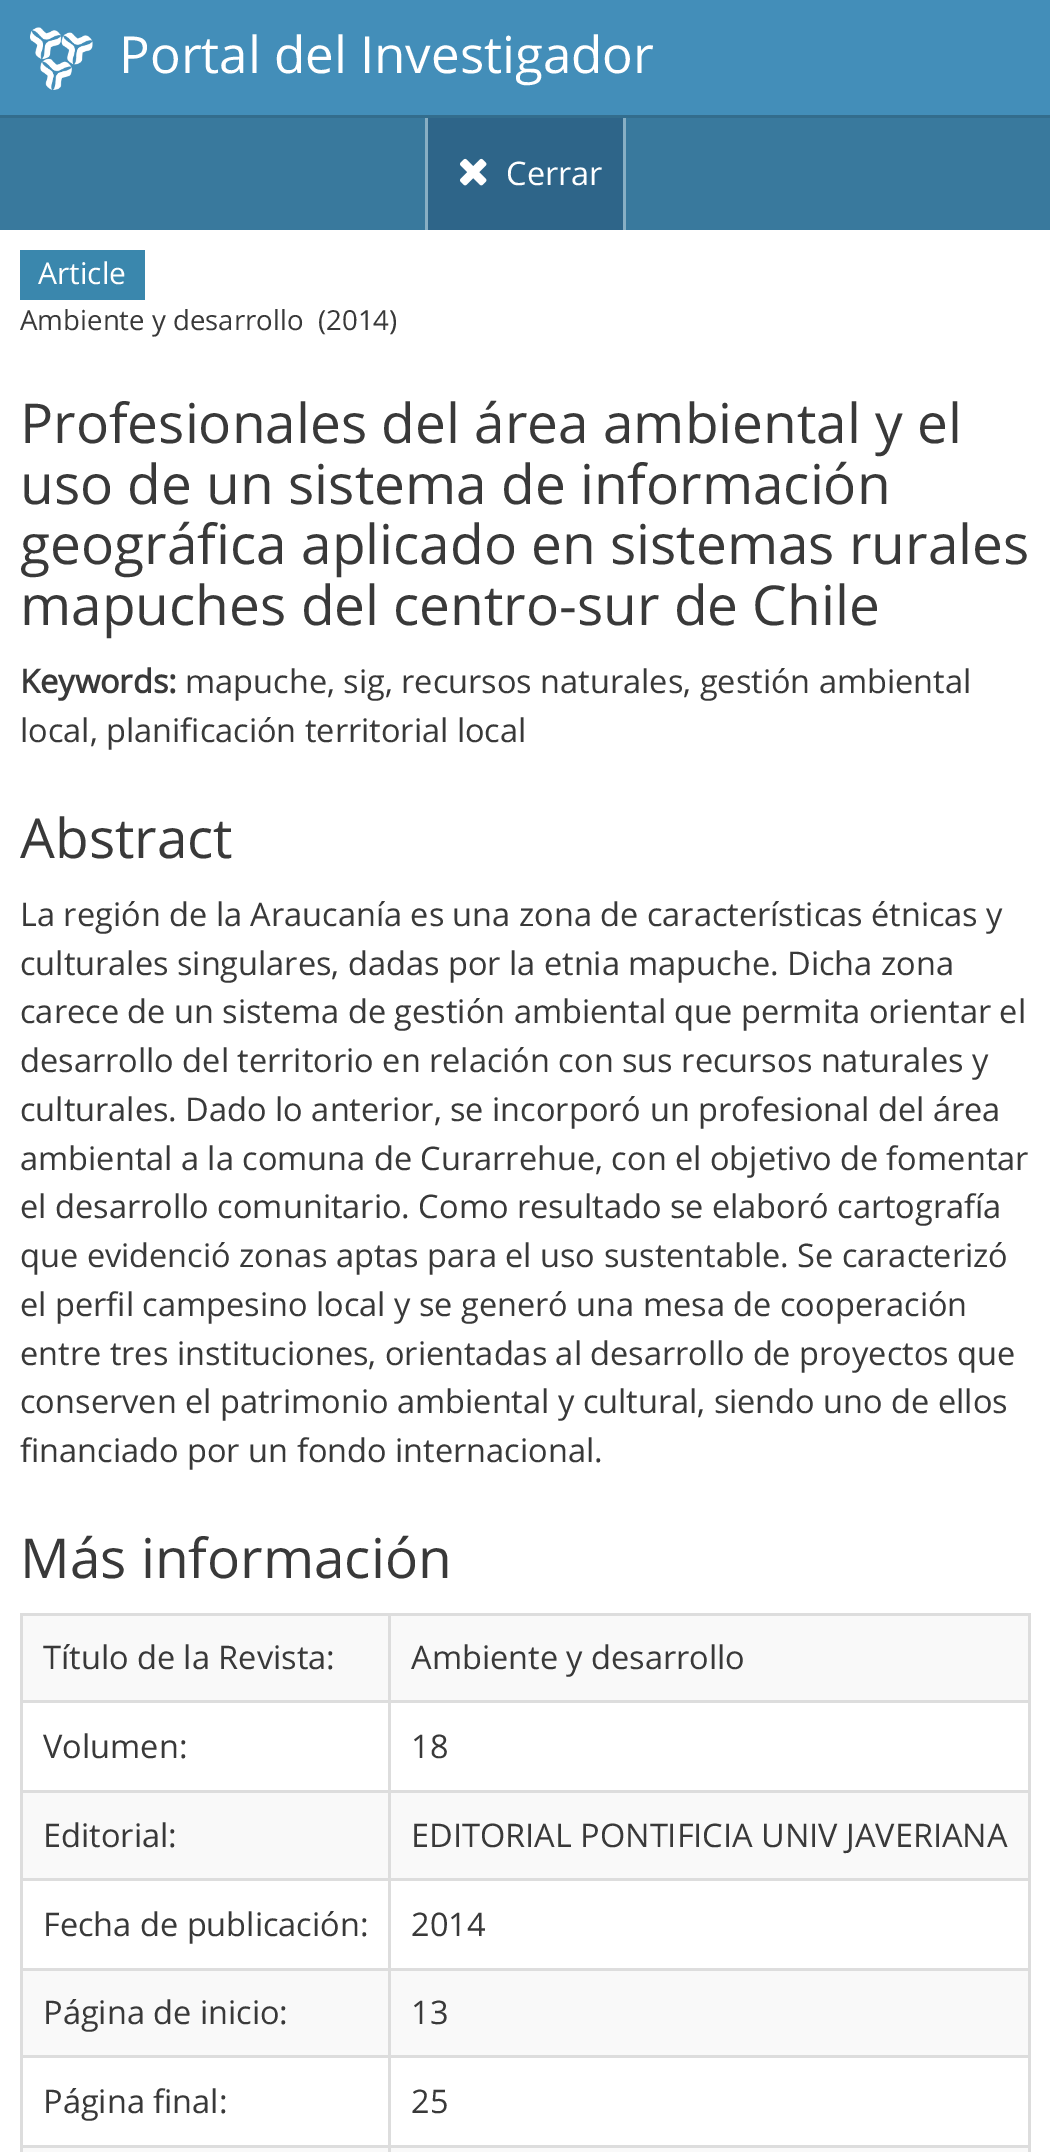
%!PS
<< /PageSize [1050 2152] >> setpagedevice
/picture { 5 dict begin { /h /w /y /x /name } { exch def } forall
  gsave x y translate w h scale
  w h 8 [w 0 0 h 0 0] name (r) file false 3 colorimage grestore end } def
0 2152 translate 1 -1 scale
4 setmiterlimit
1 setgray
0 0 1050 2152 rectfill
0.263 0.557 0.725 setrgbcolor
0 0 1050 115 rectfill
(img1.rgb) 30 27 63 63 picture
/OpenSans-Regular [51 0 0 -51 0 0] selectfont
1 setgray
119 73 moveto (Portal del Investigador) show
0.224 0.475 0.616 setrgbcolor
0 118 1050 112 rectfill
0.2 0.427 0.553 setrgbcolor
0 115 1050 3 rectfill
0.533 0.686 0.769 setrgbcolor
623 118 3 112 rectfill
425 118 3 112 rectfill
0.18 0.396 0.537 setrgbcolor
428 118 195 112 rectfill
(img2.rgb) 460 158 27 28 picture
/OpenSans-Regular [32.5 0 0 -32.5 0 0] selectfont
1 setgray
506 185 moveto (Cerrar) show
0.227 0.529 0.678 setrgbcolor
20 250 125 50 rectfill
/OpenSans-Regular [30 0 0 -30 0 0] selectfont
1 setgray
38 284 moveto (Article) show
/OpenSans-Regular [27.6 0 0 -27.6 0 0] selectfont
0.224 setgray
20 330 moveto (Ambiente y desarrollo  \(2014\)) show
/OpenSans-Regular [55 0 0 -55 0 0] selectfont
20 443 moveto (Profesionales del área ambiental y el) show
20 504 moveto (uso de un sistema de información) show
20 564 moveto (geográfica aplicado en sistemas rurales) show
20 625 moveto (mapuches del centro-sur de Chile) show
/OpenSans-Bold [32.5 0 0 -32.5 0 0] selectfont
20 693 moveto (Keywords:) show
/OpenSans-Regular [32.5 0 0 -32.5 0 0] selectfont
185 693 moveto (mapuche, sig, recursos naturales, gestión ambiental) show
20 742 moveto (local, planificación territorial local) show
/OpenSans-Regular [55 0 0 -55 0 0] selectfont
20 858 moveto (Abstract) show
/OpenSans-Regular [32.5 0 0 -32.5 0 0] selectfont
20 926 moveto (La región de la Araucanía es una zona de características étnicas y) show
20 975 moveto (culturales singulares, dadas por la etnia mapuche. Dicha zona) show
20 1023 moveto (carece de un sistema de gestión ambiental que permita orientar el) show
20 1072 moveto (desarrollo del territorio en relación con sus recursos naturales y) show
20 1121 moveto (culturales. Dado lo anterior, se incorporó un profesional del área) show
20 1170 moveto (ambiental a la comuna de Curarrehue, con el objetivo de fomentar) show
20 1218 moveto (el desarrollo comunitario. Como resultado se elaboró cartografía) show
20 1267 moveto (que evidenció zonas aptas para el uso sustentable. Se caracterizó) show
20 1316 moveto (el perfil campesino local y se generó una mesa de cooperación) show
20 1365 moveto (entre tres instituciones, orientadas al desarrollo de proyectos que) show
20 1413 moveto (conserven el patrimonio ambiental y cultural, siendo uno de ellos) show
20 1462 moveto (financiado por un fondo internacional.) show
/OpenSans-Regular [55 0 0 -55 0 0] selectfont
20 1578 moveto (Más información) show
0.867 setgray
20 1613 1010 3 rectfill
0.976 setgray
23 2148 1007 4 rectfill
0.867 setgray
1028 1613 3 539 rectfill
20 1613 3 539 rectfill
0.976 setgray
23 1616 1005 84 rectfill
/OpenSans-Regular [32.5 0 0 -32.5 0 0] selectfont
0.224 setgray
43 1669 moveto (Título de la Revista:) show
0.867 setgray
388 1700 642 3 rectfill
388 1790 642 3 rectfill
0.976 setgray
23 1793 1005 85 rectfill
0.867 setgray
388 1878 642 3 rectfill
388 1968 642 3 rectfill
0.976 setgray
23 1971 1005 84 rectfill
0.867 setgray
388 2055 642 3 rectfill
388 2145 642 3 rectfill
388 2145 3 7 rectfill
20 2145 370 3 rectfill
388 2055 3 93 rectfill
20 2055 370 3 rectfill
388 1968 3 90 rectfill
20 1968 370 3 rectfill
388 1878 3 92 rectfill
20 1878 370 3 rectfill
388 1790 3 90 rectfill
20 1790 370 3 rectfill
388 1700 3 93 rectfill
20 1700 370 3 rectfill
388 1613 3 90 rectfill
0.224 setgray
411 1669 moveto (Ambiente y desarrollo) show
43 1758 moveto (Volumen:) show
411 1758 moveto (18) show
43 1847 moveto (Editorial:) show
411 1847 moveto (EDITORIAL PONTIFICIA UNIV JAVERIANA) show
43 1936 moveto (Fecha de publicación:) show
411 1936 moveto (2014) show
43 2024 moveto (Página de inicio:) show
411 2024 moveto (13) show
43 2113 moveto (Página final:) show
411 2113 moveto (25) show
showpage
